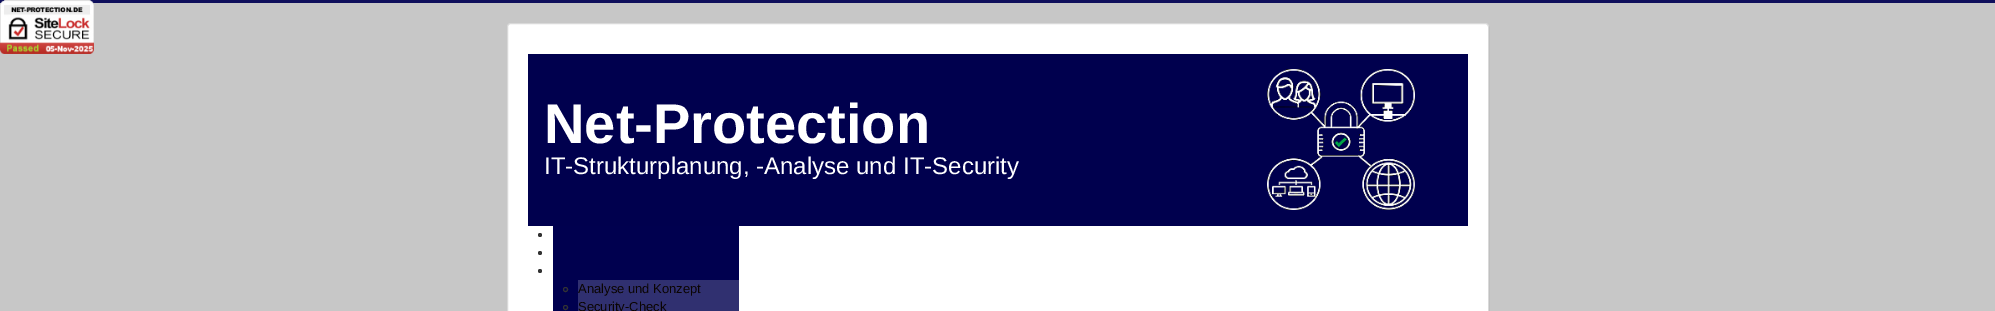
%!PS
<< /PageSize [1995 311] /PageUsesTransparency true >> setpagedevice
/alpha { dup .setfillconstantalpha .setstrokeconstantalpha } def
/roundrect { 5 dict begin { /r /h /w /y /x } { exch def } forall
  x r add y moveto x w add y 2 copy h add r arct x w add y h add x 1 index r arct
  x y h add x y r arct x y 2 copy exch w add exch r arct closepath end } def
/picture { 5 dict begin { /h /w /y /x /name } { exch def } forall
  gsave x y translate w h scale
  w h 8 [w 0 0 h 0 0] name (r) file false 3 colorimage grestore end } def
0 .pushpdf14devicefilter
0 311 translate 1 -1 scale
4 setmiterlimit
0.78 setgray
0 0 1995 311 rectfill
0.059 0.059 0.361 setrgbcolor
0 0 1995 3 rectfill
1 setgray
507 23 982 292 4 roundrect fill
0.15 alpha
0 setgray
507.5 23.5 981 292 3.5 roundrect stroke
1 alpha
0 0 0.306 setrgbcolor
528 54 940 172 rectfill
(img1.rgb) 0 0 94 54 picture
/LiberationSans-Bold [56 0 0 -56 0 0] selectfont
1 setgray
544 143 moveto (Net-Protection) show
/LiberationSans-Regular [24 0 0 -24 0 0] selectfont
544 174 moveto (IT-Strukturplanung, -Analyse und IT-Security) show
(img2.rgb) 1267 69 148 141 picture
0 0 0.31 setrgbcolor
553 226 186 85 rectfill
0.2 setgray
newpath 540 235 2 0 360 arc closepath fill
newpath 540 253 2 0 360 arc closepath fill
newpath 540 271 2 0 360 arc closepath fill
0.188 0.188 0.439 setrgbcolor
578 280 161 31 rectfill
0.2 setgray
newpath 565.5 289.5 2 0 360 arc closepath stroke
/LiberationSans-Regular [13 0 0 -13 0 0] selectfont
0.039 0.016 0.008 setrgbcolor
578 293 moveto (Analyse und Konzept) show
0.2 setgray
newpath 565.5 307.5 2 0 360 arc closepath stroke
0.039 0.016 0.008 setrgbcolor
578 311 moveto (Security-Check) show
.poppdf14devicefilter showpage
